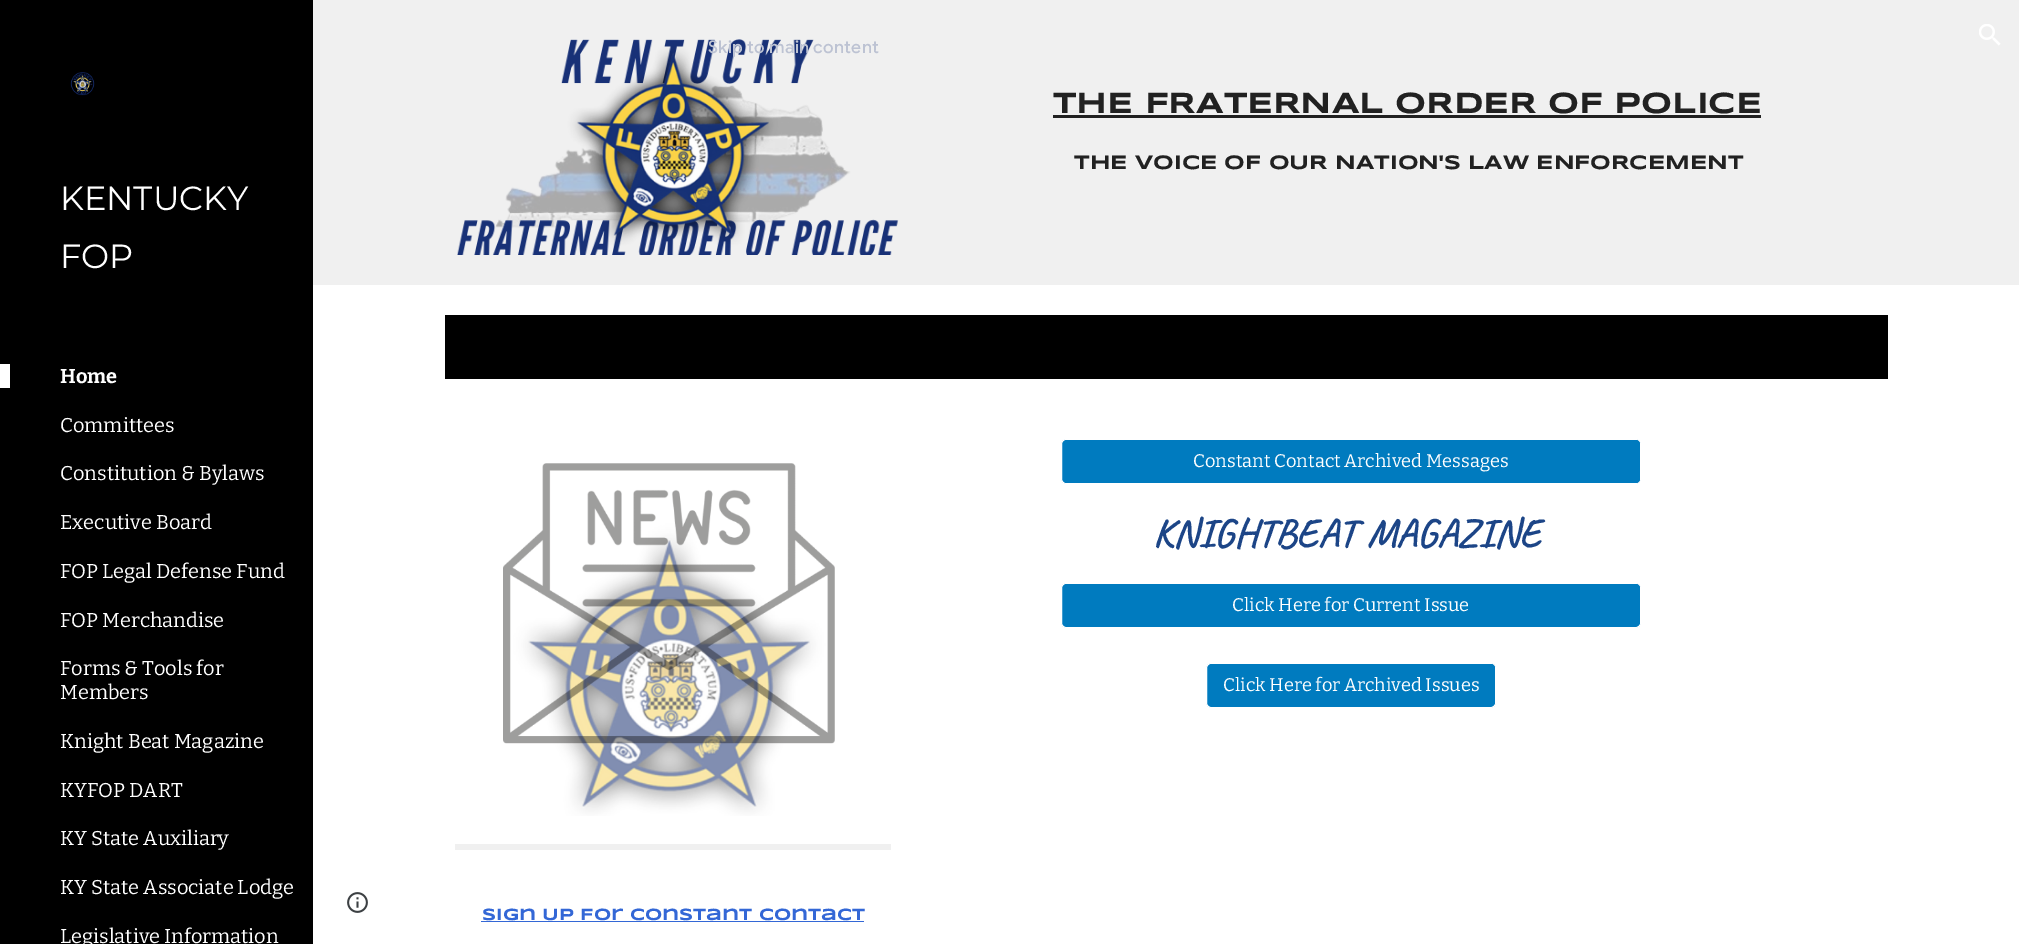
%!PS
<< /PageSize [2019 944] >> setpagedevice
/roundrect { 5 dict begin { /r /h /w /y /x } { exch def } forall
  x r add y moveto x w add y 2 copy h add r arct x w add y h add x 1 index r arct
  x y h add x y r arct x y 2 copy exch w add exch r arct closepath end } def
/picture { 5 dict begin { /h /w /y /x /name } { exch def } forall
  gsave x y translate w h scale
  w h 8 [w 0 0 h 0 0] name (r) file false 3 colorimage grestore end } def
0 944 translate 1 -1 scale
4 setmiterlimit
1 setgray
0 0 2019 944 rectfill
0.941 setgray
313 0 1706 285 rectfill
(img4.rgb) 457 39 442 216 picture
/GoogleSans-Medium [17.5 0 0 -17.5 0 0] selectfont
0.741 0.765 0.827 setrgbcolor
708 53 moveto 0.2 0 (Skip to main content) ashow
(img1.rgb) 1979 24 22 22 picture
0 setgray
0 0 313 944 rectfill
(img2.rgb) 70 72 25 24 picture
/Montserrat-Regular [33.5 0 0 -33.5 0 0] selectfont
1 setgray
60 210 moveto (KENTUCKY) show
60 268 moveto (FOP) show
0 364 10 24 rectfill
/Bitter-Bold [20 0 0 -20 0 0] selectfont
60 383 moveto (Home) show
/Bitter-Regular [20 0 0 -20 0 0] selectfont
60 432 moveto (Committees) show
60 480 moveto (Constitution & Bylaws) show
60 529 moveto (Executive Board) show
60 578 moveto (FOP Legal Defense Fund) show
60 627 moveto (FOP Merchandise) show
60 675 moveto (Forms & Tools for) show
60 699 moveto (Members) show
60 748 moveto (Knight Beat Magazine) show
60 797 moveto (KYFOP DART) show
60 845 moveto (KY State Auxiliary) show
60 894 moveto (KY State Associate Lodge) show
60 943 moveto (Legislative Information) show
(img3.rgb) 347 892 21 21 picture
/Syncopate-Bold [30 0 0 -30 0 0] selectfont
0.129 setgray
1053 113 moveto (THE FRATERNAL ORDER OF POLICE) show
1053 115 708 3 rectfill
/Syncopate-Bold [20 0 0 -20 0 0] selectfont
1074 169 moveto (THE VOICE OF OUR NATION'S LAW ENFORCEMENT) show
0 setgray
445 315 1443 64 rectfill
0 0.482 0.749 setrgbcolor
1061.5 439.5 579 44 4.5 roundrect gsave fill grestore
1 setgray
stroke
0 0.482 0.749 setrgbcolor
1063 440 577 43 4 roundrect fill
/Bitter-Regular [18.3 0 0 -18.3 0 0] selectfont
1 setgray
1193 467 moveto (Constant Contact Archived Messages) show
/Caveat-Bold [40 0 0 -40 0 0] selectfont
0.11 0.271 0.529 setrgbcolor
1153 546 moveto 1 0 32 (KNIGHTBEAT MAGAZINE) widthshow
0 0.482 0.749 setrgbcolor
1061.5 583.5 579 44 4.5 roundrect gsave fill grestore
1 setgray
stroke
0 0.482 0.749 setrgbcolor
1063 584 577 42 4 roundrect fill
/Bitter-Regular [18.3 0 0 -18.3 0 0] selectfont
1 setgray
1232 611 moveto (Click Here for Current Issue) show
0 0.482 0.749 setrgbcolor
1206.5 663.5 289 44 4.5 roundrect gsave fill grestore
1 setgray
stroke
0 0.482 0.749 setrgbcolor
1208 664 287 42 4 roundrect fill
1 setgray
1223 691 moveto (Click Here for Archived Issues) show
(img5.rgb) 503 463 332 353 picture
0.941 setgray
455 844 436 6 rectfill
/Syncopate-Bold [16.7 0 0 -16.7 0 0] selectfont
0.2 0.404 0.839 setrgbcolor
482 920 moveto (Sign Up For Constant Contact) show
481 921 383 1 rectfill
showpage
